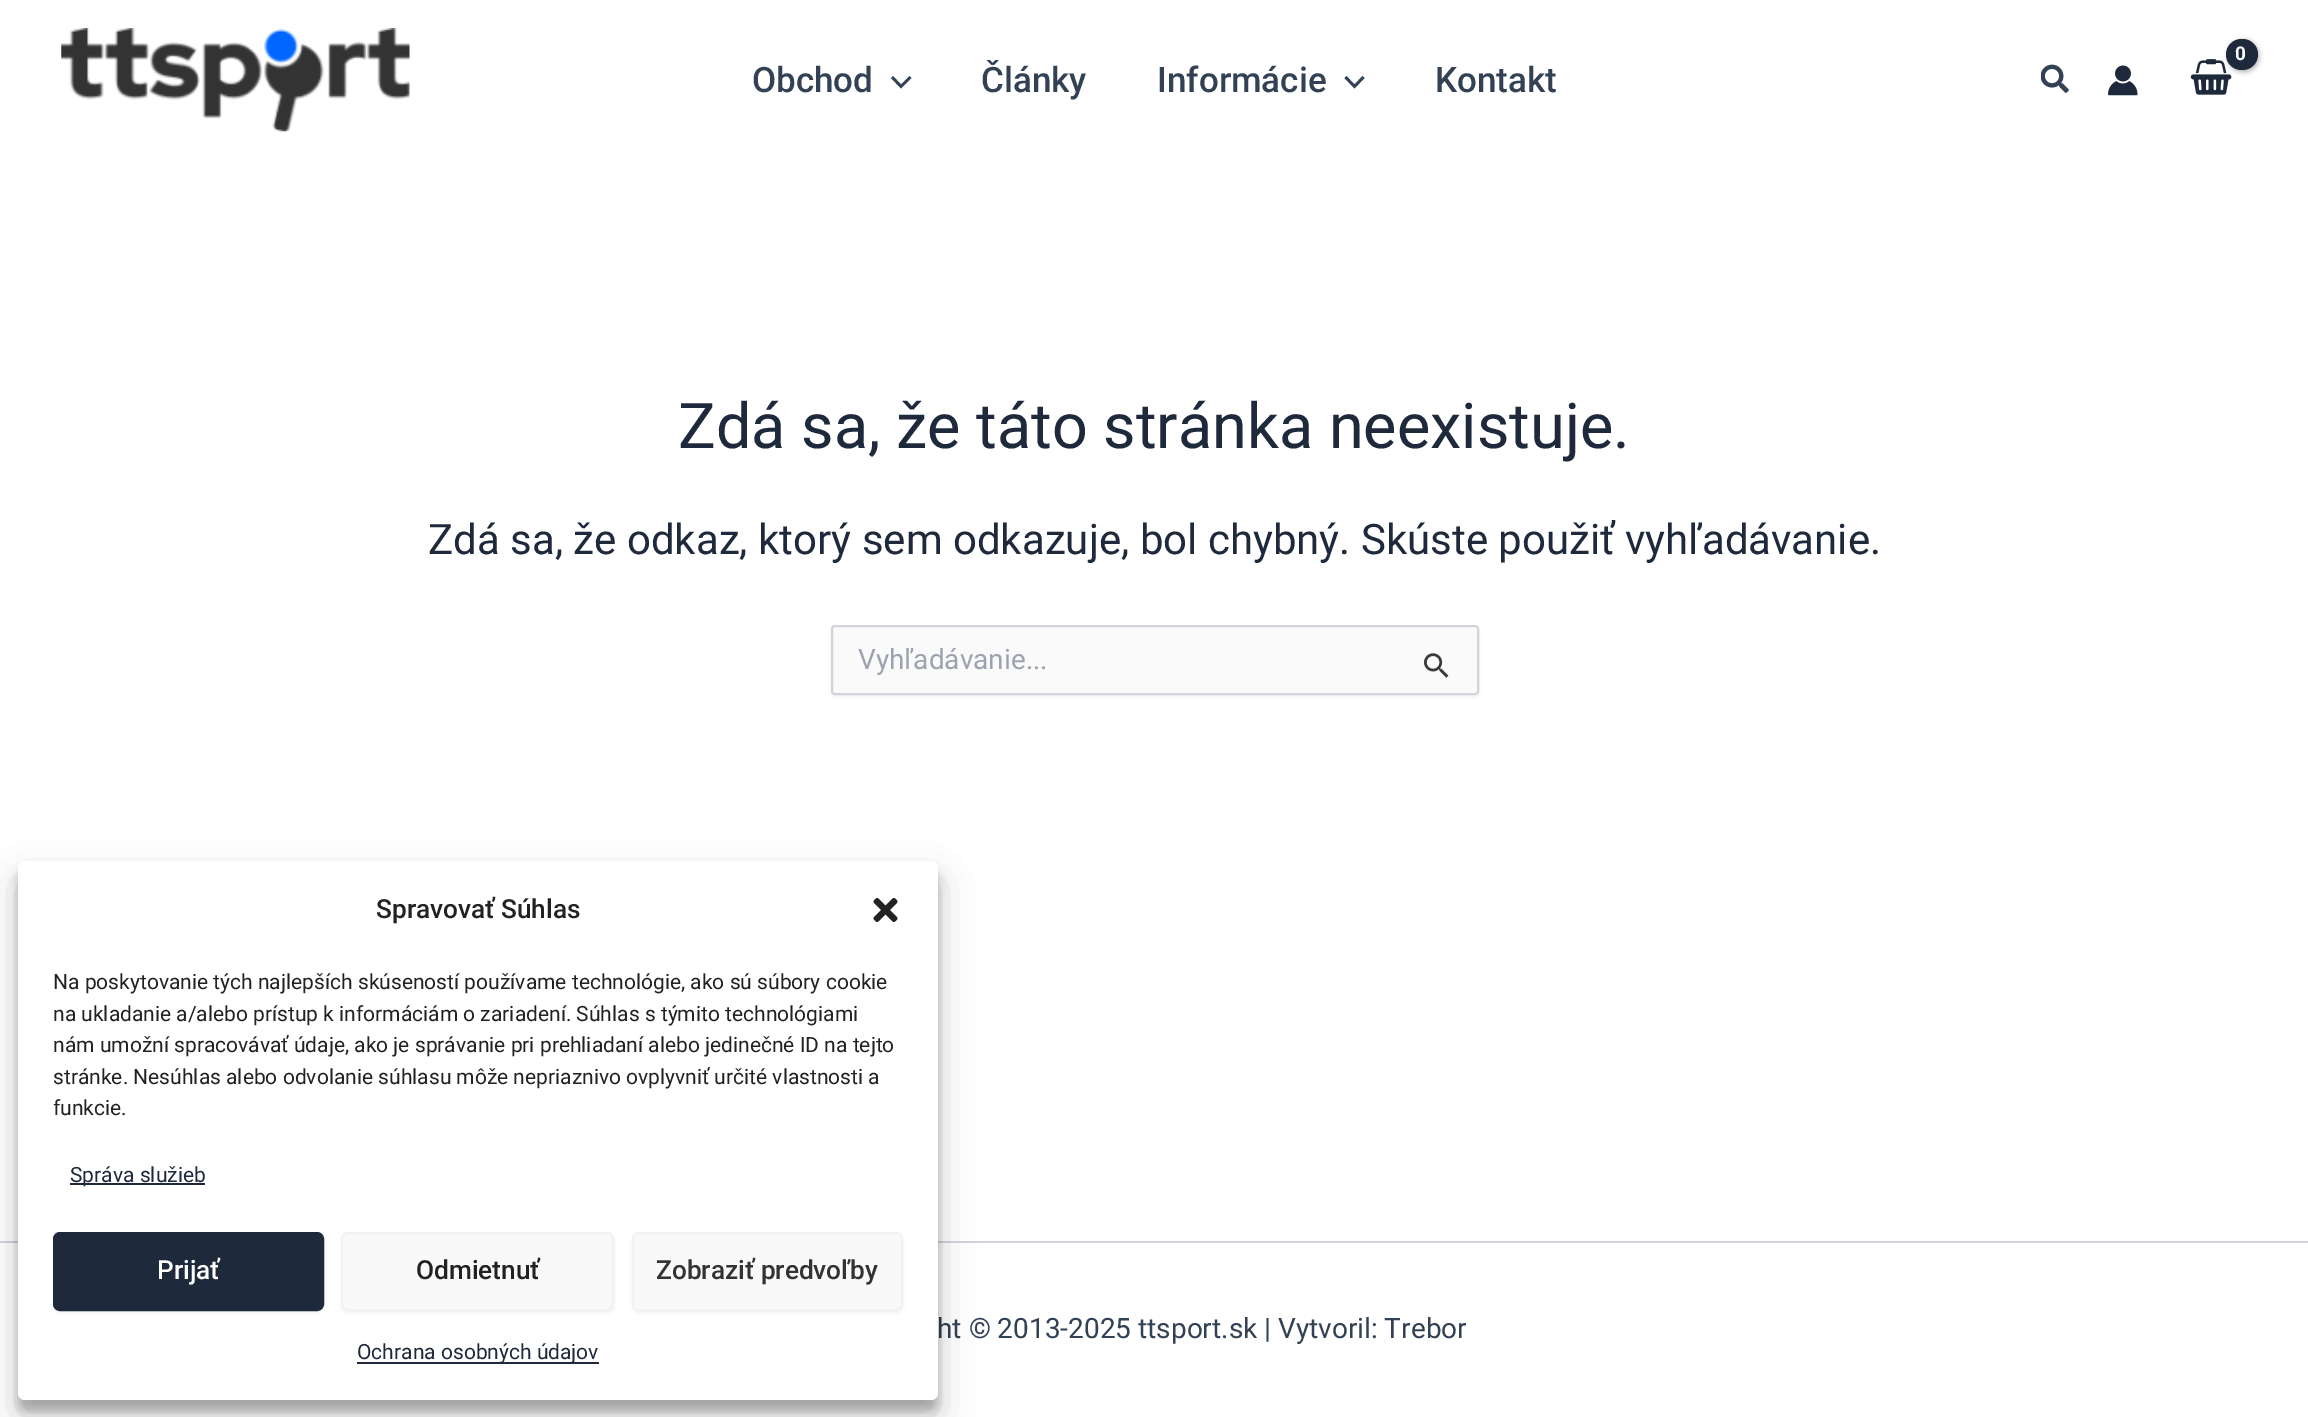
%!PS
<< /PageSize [2308 1417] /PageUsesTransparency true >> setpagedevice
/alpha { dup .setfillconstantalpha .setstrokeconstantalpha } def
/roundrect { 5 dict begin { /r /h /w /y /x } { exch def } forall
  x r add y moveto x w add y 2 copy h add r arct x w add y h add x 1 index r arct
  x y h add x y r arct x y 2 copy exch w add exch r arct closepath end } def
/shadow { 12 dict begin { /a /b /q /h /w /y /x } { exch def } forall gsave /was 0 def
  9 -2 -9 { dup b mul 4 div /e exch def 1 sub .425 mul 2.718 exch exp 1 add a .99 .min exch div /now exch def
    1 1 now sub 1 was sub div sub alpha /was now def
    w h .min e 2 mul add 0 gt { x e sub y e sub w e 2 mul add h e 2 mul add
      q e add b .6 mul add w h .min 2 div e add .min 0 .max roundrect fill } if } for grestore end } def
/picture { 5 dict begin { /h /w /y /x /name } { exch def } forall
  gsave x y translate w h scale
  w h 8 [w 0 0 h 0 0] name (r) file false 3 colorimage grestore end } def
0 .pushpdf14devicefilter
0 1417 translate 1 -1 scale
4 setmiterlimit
1 setgray
0 0 2308 1417 rectfill
(img1.rgb) 61 28 349 104 picture
(img2.rgb) 2190 59 42 36 picture
0 setgray
2228 40 31 32 15.5 2.5 0.3 shadow
0.118 0.161 0.231 setrgbcolor
2226 39 32 31 15.5 roundrect fill
/Roboto-Bold [19 0 0 -19 0 0] selectfont
1 setgray
2235 60 moveto -1 0 (0) ashow
(img3.rgb) 2041 64 28 29 picture
(img4.rgb) 2108 65 30 31 picture
/Roboto-Medium [35 0 0 -35 0 0] selectfont
0.2 0.255 0.333 setrgbcolor
752 92 moveto (Obchod) show
newpath 891 78 moveto 901 88.5 lineto 911.5 78 lineto 909.5 76 lineto 901 84.5 lineto 893 76 lineto closepath fill
981 92 moveto (Články) show
1157 92 moveto (Informácie) show
newpath 1344.5 78 moveto 1354.5 88.5 lineto 1364.5 78 lineto 1362.5 76 lineto 1354.5 84.5 lineto 1346.5 76 lineto closepath fill
1435 92 moveto (Kontakt) show
/Roboto-Regular [63 0 0 -63 0 0] selectfont
0.118 0.161 0.231 setrgbcolor
678 448 moveto (Zdá sa, že táto stránka neexistuje.) show
/Roboto-Regular [42 0 0 -42 0 0] selectfont
428 554 moveto (Zdá sa, že odkaz, ktorý sem odkazuje, bol chybný. Skúste použiť vyhľadávanie.) show
0 setgray
831 627 648 70 4 2 0.05 shadow
0.98 setgray
832 626 646 68 3 roundrect gsave fill grestore
0.82 0.835 0.859 setrgbcolor
2 setlinewidth
stroke
/Roboto-Regular [28 0 0 -28 0 0] selectfont
0.612 0.639 0.686 setrgbcolor
858 669 moveto (Vyhľadávanie...) show
(img5.rgb) 1424 653 25 25 picture
0.82 0.835 0.859 setrgbcolor
0 1241 2308 2 rectfill
0.2 0.255 0.333 setrgbcolor
937 1338 moveto (ht © 2013-2025 ttsport.sk | Vytvoril: Trebor) show
0 setgray
18 872 920 539 7 5 0.23 shadow
18 879 920 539 7 17.5 0.19 shadow
1 setgray
18 861 920 539 7 roundrect fill
/Roboto-Medium [26.25 0 0 -26.25 0 0] selectfont
0.133 setgray
376 918 moveto (Spravovať Súhlas) show
(img6.rgb) 873 898 25 24 picture
/Roboto-Regular [21 0 0 -21 0 0] selectfont
53 989 moveto (Na poskytovanie tých najlepších skúseností používame technológie, ako sú súbory cookie) show
53 1021 moveto (na ukladanie a/alebo prístup k informáciám o zariadení. Súhlas s týmito technológiami) show
53 1052 moveto (nám umožní spracovávať údaje, ako je správanie pri prehliadaní alebo jedinečné ID na tejto) show
53 1084 moveto (stránke. Nesúhlas alebo odvolanie súhlasu môže nepriaznivo ovplyvniť určité vlastnosti a) show
53 1115 moveto (funkcie.) show
0.118 0.161 0.231 setrgbcolor
70 1183 135 2 rectfill
70 1182 moveto (Správa služieb) show
0 setgray
53 1234 271 79 7 2 0.05 shadow
0.118 0.161 0.231 setrgbcolor
54 1233 269 77 6 roundrect gsave fill grestore
stroke
/Roboto-Medium [26.25 0 0 -26.25 0 0] selectfont
1 setgray
157 1279 moveto (Prijať) show
0 setgray
341 1234 273 79 7 2 0.05 shadow
0.976 setgray
342 1233 271 77 6 roundrect gsave fill grestore
0.949 setgray
stroke
0.133 setgray
416 1279 moveto (Odmietnuť) show
0 setgray
632 1234 271 79 7 2 0.05 shadow
0.976 setgray
633 1233 269 77 6 roundrect gsave fill grestore
0.949 setgray
stroke
0.2 setgray
656 1279 moveto (Zobraziť predvoľby) show
0.118 0.161 0.231 setrgbcolor
357 1362 242 2 rectfill
/Roboto-Regular [21 0 0 -21 0 0] selectfont
357 1359 moveto (Ochrana osobných údajov) show
.poppdf14devicefilter showpage
